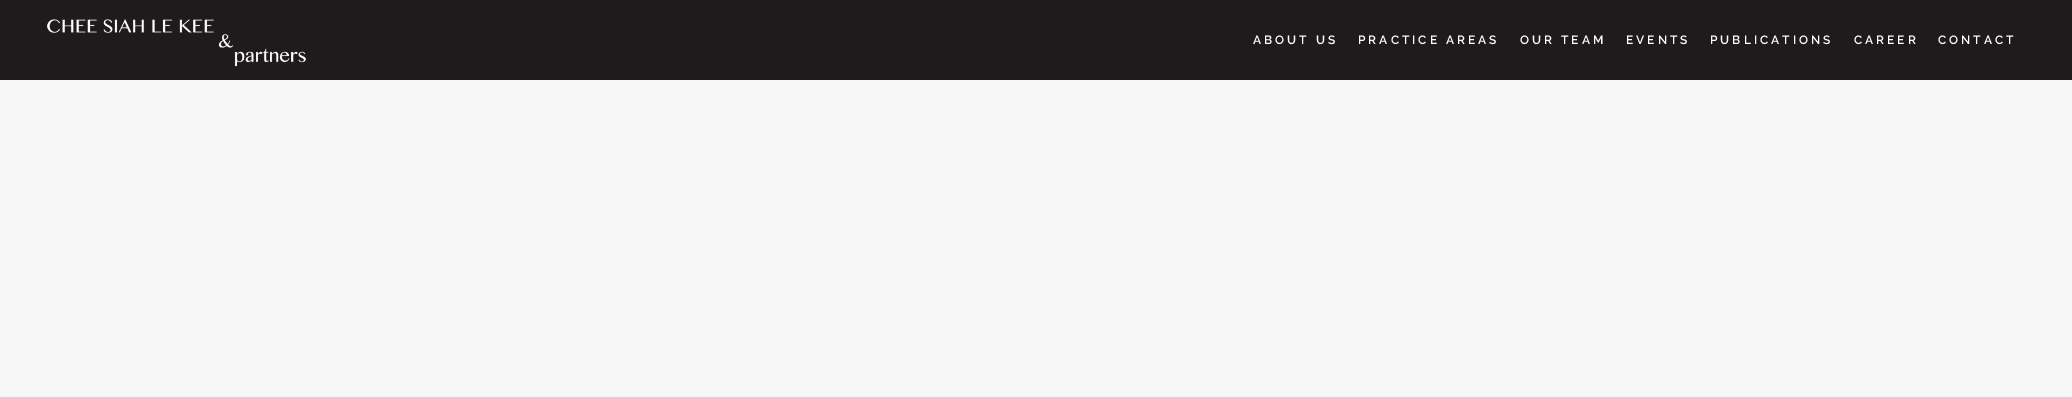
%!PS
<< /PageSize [2072 397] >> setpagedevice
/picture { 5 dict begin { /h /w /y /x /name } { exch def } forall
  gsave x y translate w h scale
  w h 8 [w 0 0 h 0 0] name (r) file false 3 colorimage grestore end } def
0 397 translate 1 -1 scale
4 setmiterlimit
0.965 setgray
0 0 2072 397 rectfill
0.122 0.106 0.114 setrgbcolor
0 0 2072 80 rectfill
(img1.rgb) 47 19 259 48 picture
/Raleway-Thin [12 0 0 -12 0 0] selectfont
1 setgray
1253 44 moveto 3 0 (ABOUT US) ashow
1358 44 moveto 3 0 (PRACTICE AREAS) ashow
1520 44 moveto 3 0 (OUR TEAM) ashow
1626 44 moveto 3 0 (EVENTS) ashow
1710 44 moveto 3 0 (PUBLICATIONS) ashow
1854 44 moveto 3 0 (CAREER) ashow
1938 44 moveto 3 0 (CONTACT) ashow
showpage
